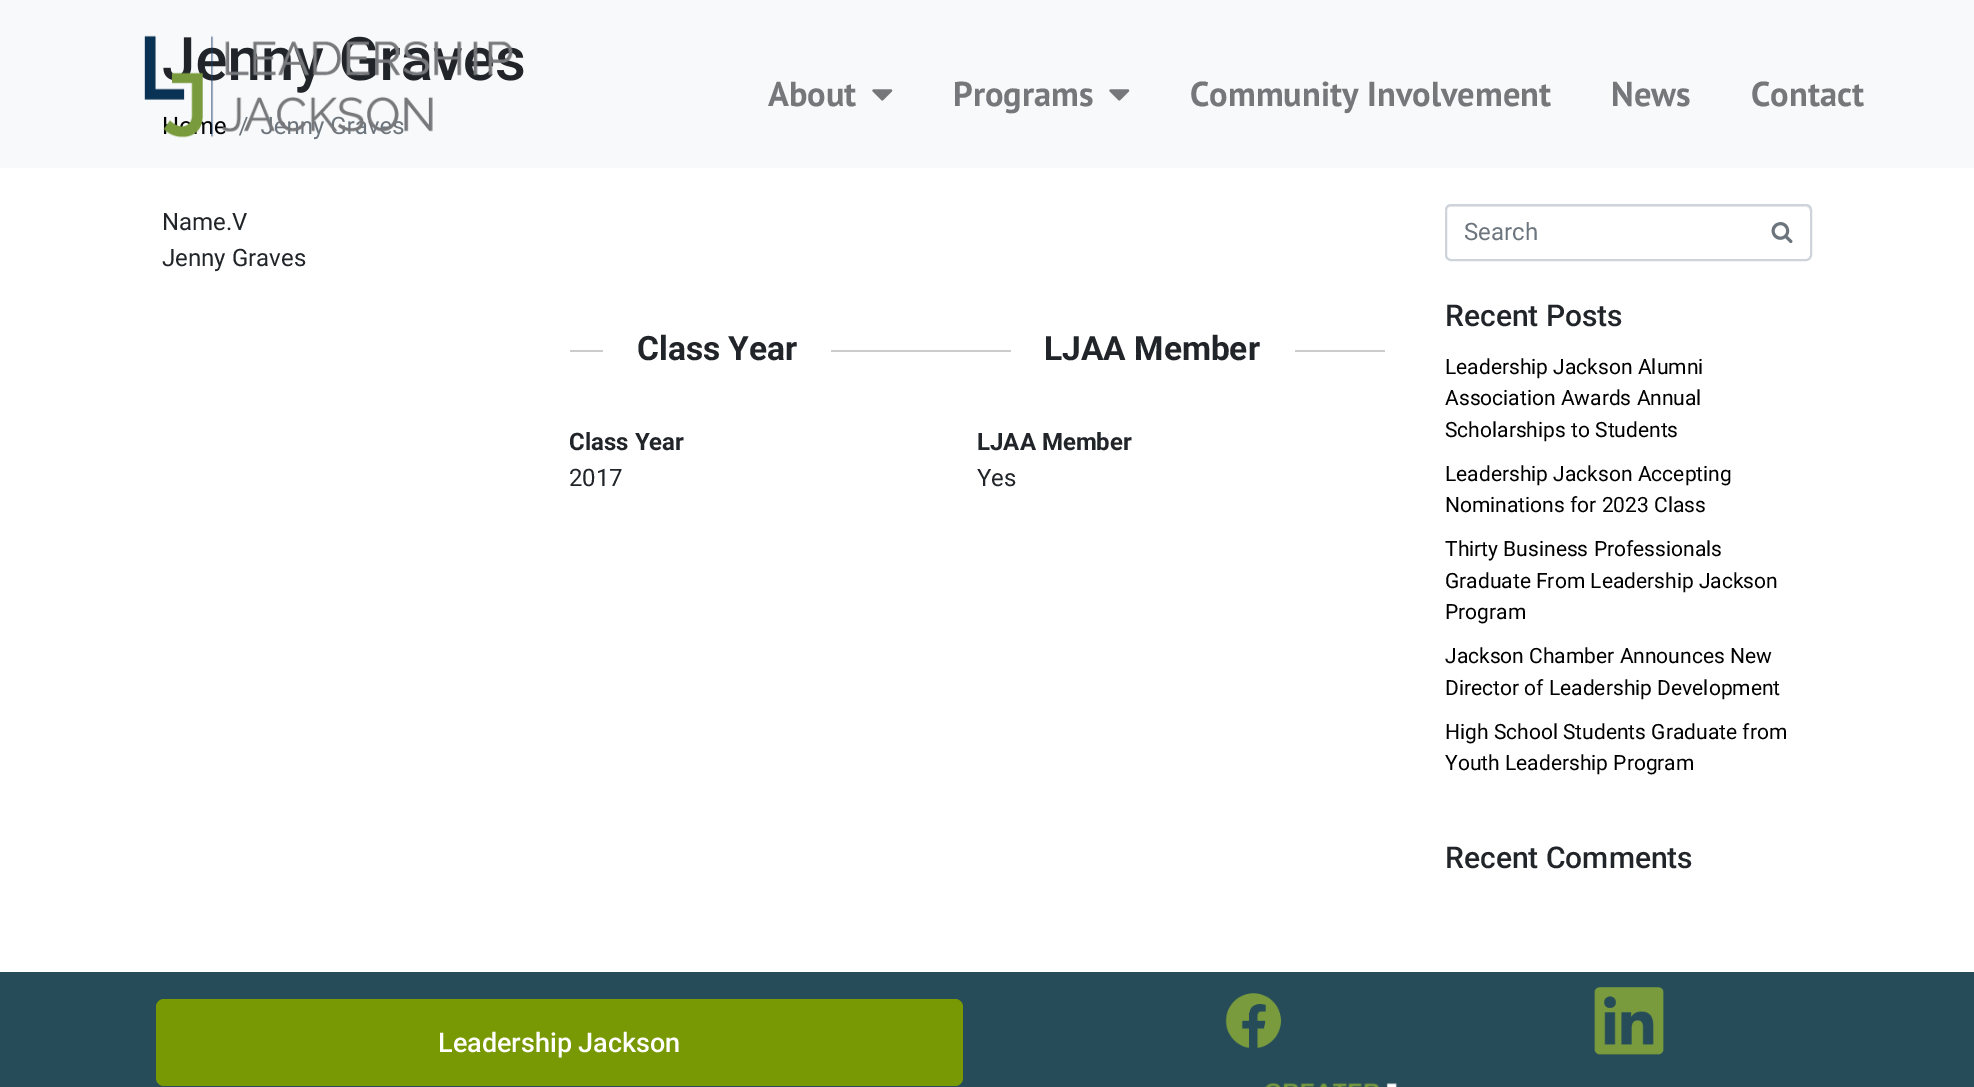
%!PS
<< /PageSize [1974 1087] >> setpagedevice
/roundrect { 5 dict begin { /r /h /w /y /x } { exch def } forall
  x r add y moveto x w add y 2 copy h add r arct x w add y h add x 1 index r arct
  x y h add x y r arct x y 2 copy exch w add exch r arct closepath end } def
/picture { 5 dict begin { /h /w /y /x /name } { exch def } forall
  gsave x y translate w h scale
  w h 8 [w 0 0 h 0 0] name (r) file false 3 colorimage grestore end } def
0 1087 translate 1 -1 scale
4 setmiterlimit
1 setgray
0 0 1974 1087 rectfill
0.973 0.976 0.98 setrgbcolor
0 0 1974 168 rectfill
/Roboto-Medium [60 0 0 -60 0 0] selectfont
0.129 0.145 0.161 setrgbcolor
162 80 moveto (Jenny Graves) show
/Roboto-Regular [24 0 0 -24 0 0] selectfont
0 setgray
214 134 moveto (e) show
0.424 0.459 0.49 setrgbcolor
239 134 moveto (/) show
261 134 moveto (Jenny Graves) show
0.129 0.145 0.161 setrgbcolor
162 230 moveto (Name.V) show
162 266 moveto (Jenny Graves) show
0.8 setgray
570 350 815 2 rectfill
1 setgray
603 350 228 2 rectfill
/Roboto-Bold [33.5 0 0 -33.5 0 0] selectfont
0.129 0.145 0.161 setrgbcolor
637 360 moveto (Class Year) show
/Roboto-Bold [24 0 0 -24 0 0] selectfont
569 450 moveto (Class Year) show
/Roboto-Regular [24 0 0 -24 0 0] selectfont
569 486 moveto (2017) show
1 setgray
1011 350 284 2 rectfill
/Roboto-Bold [33.5 0 0 -33.5 0 0] selectfont
0.129 0.145 0.161 setrgbcolor
1044 360 moveto (LJAA Member) show
/Roboto-Bold [24 0 0 -24 0 0] selectfont
977 450 moveto (LJAA Member) show
/Roboto-Regular [24 0 0 -24 0 0] selectfont
977 486 moveto (Yes) show
0.925 setgray
newpath 1450 207 moveto 1806 207 lineto 1808 207 1810 209 1810 212 curveto 1810 256 lineto 1809 259 lineto 1810 258 1811 256 1811 255 curveto 1811 211 lineto 1811 208 1809 206 1806 206 curveto 1451 206 lineto 1448 206 1446 208 1446 211 curveto 1446 212 lineto 1446 209 1448 207 1450 207 curveto closepath fill
0.808 0.831 0.855 setrgbcolor
2 setlinewidth
1446 205 365 55 5 roundrect stroke
0.424 0.459 0.49 setrgbcolor
1464 240 moveto (Search) show
(img1.rgb) 1771 222 22 22 picture
/Roboto-Medium [30 0 0 -30 0 0] selectfont
0.129 0.145 0.161 setrgbcolor
1445 326 moveto (Recent Posts) show
/Roboto-Regular [21 0 0 -21 0 0] selectfont
0 setgray
1445 374 moveto (Leadership Jackson Alumni) show
1445 405 moveto (Association Awards Annual) show
1445 437 moveto (Scholarships to Students) show
1445 481 moveto (Leadership Jackson Accepting) show
1445 512 moveto (Nominations for 2023 Class) show
1445 556 moveto (Thirty Business Professionals) show
1445 588 moveto (Graduate From Leadership Jackson) show
1445 619 moveto (Program) show
1445 663 moveto (Jackson Chamber Announces New) show
1445 695 moveto (Director of Leadership Development) show
1445 739 moveto (High School Students Graduate from) show
1445 770 moveto (Youth Leadership Program) show
/Roboto-Medium [30 0 0 -30 0 0] selectfont
0.129 0.145 0.161 setrgbcolor
1445 868 moveto (Recent Comments) show
(img2.rgb) 144 35 369 103 picture
/PTSans-Bold [34.5 0 0 -34.5 0 0] selectfont
0.463 0.467 0.478 setrgbcolor
768 106 moveto (About) show
(img3.rgb) 872 89 21 12 picture
953 106 moveto (Programs) show
(img3.rgb) 1109 89 21 12 picture
1190 106 moveto (Community Involvement) show
1611 106 moveto (News) show
1751 106 moveto (Contact) show
0.149 0.298 0.349 setrgbcolor
0 972 1974 115 rectfill
0.471 0.6 0.016 setrgbcolor
156 999 807 87 8 roundrect fill
/Roboto-Medium [27 0 0 -27 0 0] selectfont
1 setgray
438 1052 moveto (Leadership Jackson) show
(img4.rgb) 1225 993 57 56 picture
(img5.rgb) 1594 987 70 68 picture
(img6.rgb) 1265 1083 133 4 picture
showpage
